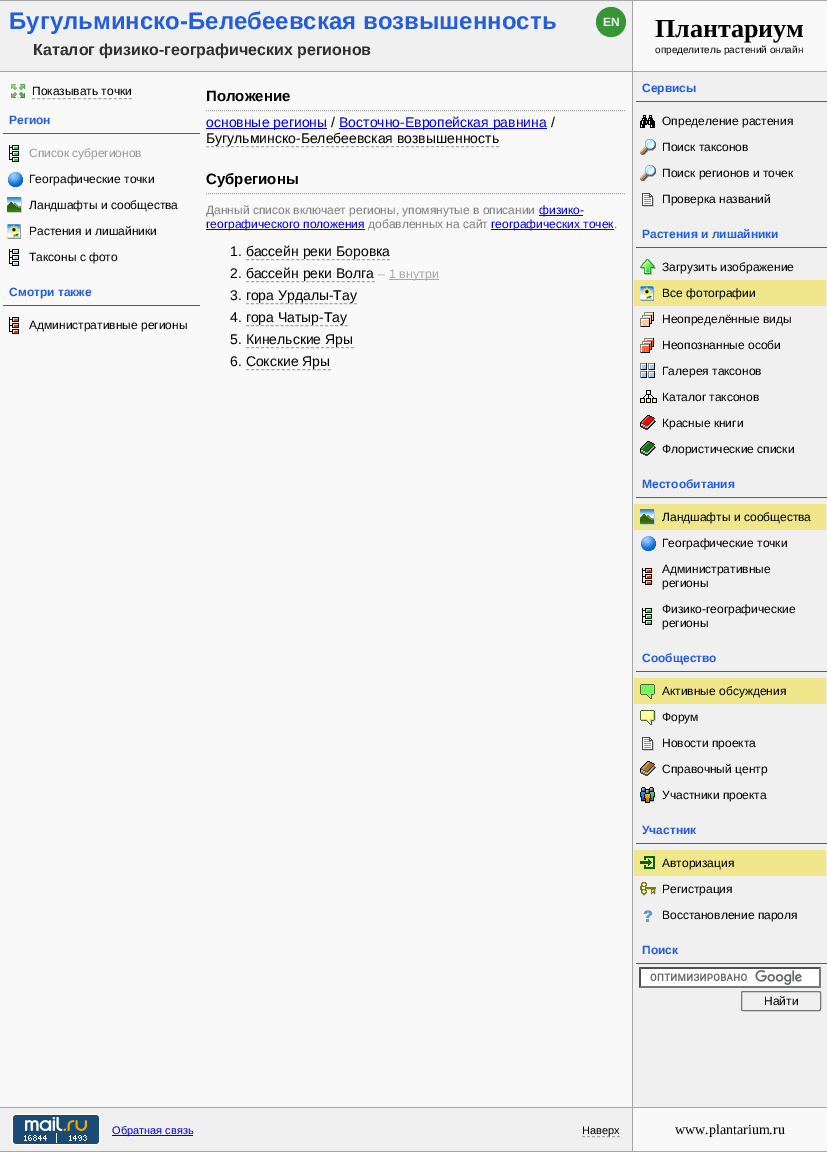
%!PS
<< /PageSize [827 1152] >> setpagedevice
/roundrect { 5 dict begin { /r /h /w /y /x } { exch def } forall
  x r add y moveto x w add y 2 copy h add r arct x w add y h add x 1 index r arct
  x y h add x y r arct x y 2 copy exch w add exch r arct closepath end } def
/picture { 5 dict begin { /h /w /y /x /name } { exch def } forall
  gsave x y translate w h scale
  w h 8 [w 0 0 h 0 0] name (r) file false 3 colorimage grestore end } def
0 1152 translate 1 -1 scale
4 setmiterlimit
0.976 setgray
0 0 827 1152 rectfill
0.941 setgray
0 1 632 70 rectfill
/LiberationSans-Bold [24 0 0 -24 0 0] selectfont
0.141 0.369 0.863 setrgbcolor
9 29 moveto (Бугульминско-Белебеевская возвышенность) show
/LiberationSans-Bold [16 0 0 -16 0 0] selectfont
0.184 setgray
33 55 moveto (Каталог физико-географических регионов) show
0.216 0.584 0.216 setrgbcolor
newpath 611 22 15 0 360 arc closepath fill
/LiberationSans-Bold [12 0 0 -12 0 0] selectfont
0.996 setgray
603 26 moveto (EN) show
0.651 setgray
0 0 827 1 rectfill
0 71 827 1 rectfill
632 0 1 1107 rectfill
/LiberationSerif-Bold [26 0 0 -26 0 0] selectfont
0 setgray
655 37 moveto (Плантариум) show
/LiberationSans-Regular [10 0 0 -10 0 0] selectfont
655 53 moveto (определитель растений онлайн) show
(img1.rgb) 11 84 14 14 picture
/LiberationSans-Regular [12 0 0 -12 0 0] selectfont
32 95 moveto (Показывать точки) show
0.663 setgray
[3 2.11] 0 setdash
newpath 32 98.5 moveto 132 98.5 lineto stroke
0.141 0.369 0.863 setrgbcolor
3 133 197 1 rectfill
/LiberationSans-Bold [12 0 0 -12 0 0] selectfont
9 124 moveto (Регион) show
(img2.rgb) 9 145 10 17 picture
/LiberationSans-Regular [12 0 0 -12 0 0] selectfont
0.6 setgray
29 157 moveto (Список субрегионов) show
(img3.rgb) 8 172 15 15 picture
0 setgray
29 183 moveto (Географические точки) show
(img4.rgb) 7 197 15 16 picture
29 209 moveto (Ландшафты и сообщества) show
(img5.rgb) 7 224 14 15 picture
29 235 moveto (Растения и лишайники) show
(img6.rgb) 9 249 10 17 picture
29 261 moveto (Таксоны с фото) show
0.141 0.369 0.863 setrgbcolor
3 305 197 1 rectfill
/LiberationSans-Bold [12 0 0 -12 0 0] selectfont
9 296 moveto (Смотри также) show
(img7.rgb) 9 317 10 17 picture
/LiberationSans-Regular [12 0 0 -12 0 0] selectfont
0 setgray
29 329 moveto (Административные регионы) show
0.651 setgray
[1 1] 0 setdash
newpath 206 110.5 moveto 626 110.5 lineto stroke
/LiberationSans-Bold [15 0 0 -15 0 0] selectfont
0 setgray
206 101 moveto (Положение) show
0 0 0.933 setrgbcolor
206 128 121 1 rectfill
/LiberationSans-Regular [14 0 0 -14 0 0] selectfont
206 127 moveto (основные регионы) show
0 setgray
331 127 moveto (/) show
0 0 0.933 setrgbcolor
339 128 208 1 rectfill
339 127 moveto (Восточно-Европейская равнина) show
0 setgray
551 127 moveto (/) show
206 143 moveto (Бугульминско-Белебеевская возвышенность) show
0.663 setgray
[3 2] 0 setdash
newpath 206 146.5 moveto 499 146.5 lineto stroke
0.651 setgray
[1 1] 0 setdash
newpath 206 193.5 moveto 626 193.5 lineto stroke
/LiberationSans-Bold [15 0 0 -15 0 0] selectfont
0 setgray
206 184 moveto (Субрегионы) show
/LiberationSans-Regular [12 0 0 -12 0 0] selectfont
0.502 setgray
206 214 moveto (Данный список включает регионы, упомянутые в описании) show
0 0 0.933 setrgbcolor
539 215 44 1 rectfill
539 214 moveto (физико-) show
206 229 159 1 rectfill
206 228 moveto (географического положения) show
0.502 setgray
368 228 moveto (добавленных на сайт) show
0 0 0.933 setrgbcolor
491 229 123 1 rectfill
491 228 moveto (географических точек) show
0.502 setgray
614 228 moveto (.) show
/LiberationSans-Regular [14 0 0 -14 0 0] selectfont
0 setgray
230 256 moveto (1. бассейн реки Боровка) show
0.663 setgray
[3 2.04] 0 setdash
newpath 246 259.5 moveto 390 259.5 lineto stroke
0 setgray
230 278 moveto (2. бассейн реки Волга) show
/LiberationSans-Regular [12.5 0 0 -12.5 0 0] selectfont
0.663 setgray
378 278 moveto (–) show
389 279 50 1 rectfill
389 278 moveto (1 внутри) show
newpath 246 281.5 moveto 375 281.5 lineto stroke
/LiberationSans-Regular [14 0 0 -14 0 0] selectfont
0 setgray
230 300 moveto (3. гора Урдалы-Тау) show
0.663 setgray
[3 1.91] 0 setdash
newpath 246 303.5 moveto 357 303.5 lineto stroke
0 setgray
230 322 moveto (4. гора Чатыр-Тау) show
0.663 setgray
[3 1.95] 0 setdash
newpath 246 325.5 moveto 348 325.5 lineto stroke
0 setgray
230 344 moveto (5. Кинельские Яры) show
0.663 setgray
[3 2] 0 setdash
newpath 246 347.5 moveto 354 347.5 lineto stroke
0 setgray
230 366 moveto (6. Сокские Яры) show
0.663 setgray
[3 2.12] 0 setdash
newpath 246 369.5 moveto 331 369.5 lineto stroke
0.941 setgray
633 72 194 1035 rectfill
0.141 0.369 0.863 setrgbcolor
636 101 191 1 rectfill
/LiberationSans-Bold [12 0 0 -12 0 0] selectfont
642 92 moveto (Сервисы) show
(img8.rgb) 640 115 15 13 picture
/LiberationSans-Regular [12 0 0 -12 0 0] selectfont
0 setgray
662 125 moveto (Определение растения) show
(img9.rgb) 640 139 16 16 picture
662 151 moveto (Поиск таксонов) show
(img9.rgb) 640 165 16 16 picture
662 177 moveto (Поиск регионов и точек) show
(img10.rgb) 642 193 12 14 picture
662 203 moveto (Проверка названий) show
0.141 0.369 0.863 setrgbcolor
636 247 191 1 rectfill
/LiberationSans-Bold [12 0 0 -12 0 0] selectfont
642 238 moveto (Растения и лишайники) show
(img11.rgb) 640 259 16 16 picture
/LiberationSans-Regular [12 0 0 -12 0 0] selectfont
0 setgray
662 271 moveto (Загрузить изображение) show
0.941 0.902 0.549 setrgbcolor
634 280 192 26 rectfill
(img5.rgb) 640 286 14 15 picture
0 setgray
662 297 moveto (Все фотографии) show
(img12.rgb) 640 312 14 15 picture
662 323 moveto (Неопределённые виды) show
(img13.rgb) 640 338 14 15 picture
662 349 moveto (Неопознанные особи) show
(img14.rgb) 640 363 15 15 picture
662 375 moveto (Галерея таксонов) show
(img15.rgb) 640 390 17 13 picture
662 401 moveto (Каталог таксонов) show
(img16.rgb) 640 415 16 15 picture
662 427 moveto (Красные книги) show
(img17.rgb) 640 441 16 15 picture
662 453 moveto (Флористические списки) show
0.141 0.369 0.863 setrgbcolor
636 497 191 1 rectfill
/LiberationSans-Bold [12 0 0 -12 0 0] selectfont
642 488 moveto (Местообитания) show
0.941 0.902 0.549 setrgbcolor
634 504 192 26 rectfill
(img18.rgb) 640 509 15 16 picture
/LiberationSans-Regular [12 0 0 -12 0 0] selectfont
0 setgray
662 521 moveto (Ландшафты и сообщества) show
(img19.rgb) 641 536 15 15 picture
662 547 moveto (Географические точки) show
(img20.rgb) 642 568 10 17 picture
662 573 moveto (Административные) show
662 587 moveto (регионы) show
(img21.rgb) 642 608 10 17 picture
662 613 moveto (Физико-географические) show
662 627 moveto (регионы) show
0.141 0.369 0.863 setrgbcolor
636 671 191 1 rectfill
/LiberationSans-Bold [12 0 0 -12 0 0] selectfont
642 662 moveto (Сообщество) show
0.941 0.902 0.549 setrgbcolor
634 678 192 26 rectfill
(img22.rgb) 640 684 15 15 picture
/LiberationSans-Regular [12 0 0 -12 0 0] selectfont
0 setgray
662 695 moveto (Активные обсуждения) show
(img23.rgb) 640 710 16 15 picture
662 721 moveto (Форум) show
(img10.rgb) 642 737 12 14 picture
662 747 moveto (Новости проекта) show
(img24.rgb) 640 761 16 15 picture
662 773 moveto (Справочный центр) show
(img25.rgb) 640 787 15 16 picture
662 799 moveto (Участники проекта) show
0.141 0.369 0.863 setrgbcolor
636 843 191 1 rectfill
/LiberationSans-Bold [12 0 0 -12 0 0] selectfont
642 834 moveto (Участник) show
0.941 0.902 0.549 setrgbcolor
634 850 192 26 rectfill
(img26.rgb) 640 856 15 13 picture
/LiberationSans-Regular [12 0 0 -12 0 0] selectfont
0 setgray
662 867 moveto (Авторизация) show
(img27.rgb) 640 882 16 14 picture
662 893 moveto (Регистрация) show
(img28.rgb) 643 910 10 12 picture
662 919 moveto (Восстановление пароля) show
0.141 0.369 0.863 setrgbcolor
636 963 191 1 rectfill
/LiberationSans-Bold [12 0 0 -12 0 0] selectfont
642 954 moveto (Поиск) show
1 setgray
639 967 182 21 rectfill
(img29.rgb) 650 970 152 15 picture
0.31 setgray
newpath 639 967 moveto 821 967 lineto 819 969 lineto 641 969 lineto closepath fill
0.463 setgray
newpath 821 967 moveto 821 988 lineto 819 986 lineto 819 969 lineto closepath fill
newpath 821 988 moveto 639 988 lineto 641 986 lineto 819 986 lineto closepath fill
0.31 setgray
newpath 639 988 moveto 639 967 lineto 641 969 lineto 641 986 lineto closepath fill
0.463 setgray
[] 0 setdash
741.5 991.5 79 19 1.5 roundrect stroke
/LiberationSans-Regular [12 0 0 -12 0 0] selectfont
0 setgray
764 1005 moveto (Найти) show
0.941 setgray
0 1108 632 43 rectfill
0.651 setgray
0 1107 827 1 rectfill
0 1151 827 1 rectfill
(img30.rgb) 12 1114 88 31 picture
0 0 0.933 setrgbcolor
112 1135 81 1 rectfill
/LiberationSans-Regular [11 0 0 -11 0 0] selectfont
112 1134 moveto (Обратная связь) show
0.663 setgray
[3 2] 0 setdash
newpath 582 1136.5 moveto 620 1136.5 lineto stroke
0 setgray
582 1134 moveto (Наверх) show
0.651 setgray
632 1107 1 45 rectfill
/LiberationSerif-Regular [14 0 0 -14 0 0] selectfont
0 setgray
675 1134 moveto (www.plantarium.ru) show
showpage
